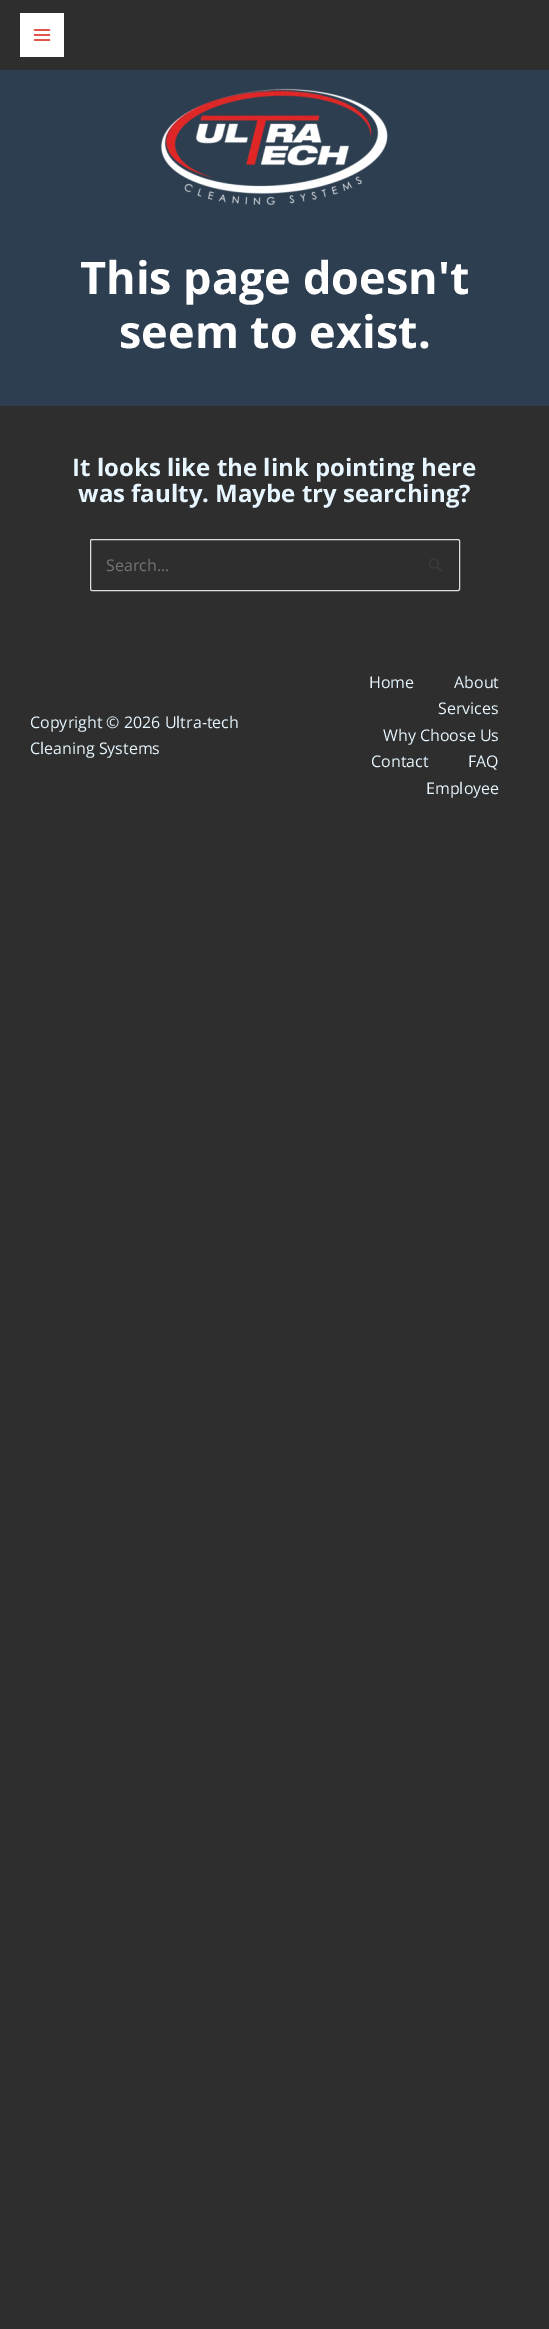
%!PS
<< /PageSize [549 2329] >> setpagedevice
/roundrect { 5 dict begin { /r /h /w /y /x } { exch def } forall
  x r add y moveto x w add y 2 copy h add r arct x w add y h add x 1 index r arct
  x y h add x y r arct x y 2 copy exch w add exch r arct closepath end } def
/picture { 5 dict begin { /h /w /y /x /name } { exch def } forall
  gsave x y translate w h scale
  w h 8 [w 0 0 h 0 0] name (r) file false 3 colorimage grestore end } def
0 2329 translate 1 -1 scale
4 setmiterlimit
0.18 setgray
0 0 549 2329 rectfill
0.173 0.243 0.314 setrgbcolor
0 70 549 336 rectfill
1 setgray
20 13 44 44 rectfill
(img1.rgb) 33 29 18 12 picture
(img2.rgb) 160 88 228 117 picture
/OpenSans-Bold [45 0 0 -45 0 0] selectfont
80 294 moveto (This page doesn't) show
119 348 moveto (seem to exist.) show
/OpenSans-Bold [24 0 0 -24 0 0] selectfont
0.906 0.965 1 setrgbcolor
72 476 moveto (It looks like the link pointing here) show
78 502 moveto (was faulty. Maybe try searching?) show
0.867 setgray
90.5 539.5 369 51 1.5 roundrect stroke
/OpenSans-Regular [16 0 0 -16 0 0] selectfont
0.459 setgray
106 571 moveto (Search...) show
(img3.rgb) 429 558 13 14 picture
0.906 0.965 1 setrgbcolor
30 728 moveto (Copyright © 2026 Ultra-tech) show
30 754 moveto (Cleaning Systems) show
369 688 moveto (Home) show
454 688 moveto (About) show
438 714 moveto (Services) show
383 741 moveto (Why Choose Us) show
371 767 moveto (Contact) show
468 767 moveto (FAQ) show
426 794 moveto (Employee) show
showpage
